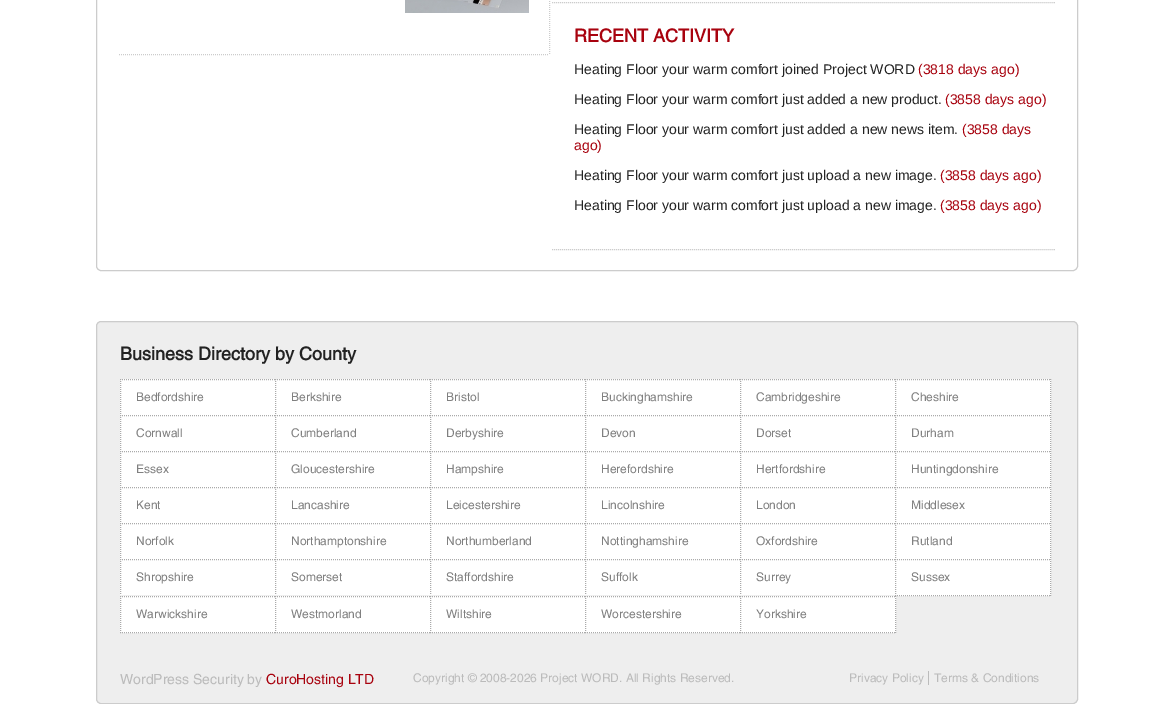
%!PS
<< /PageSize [1171 704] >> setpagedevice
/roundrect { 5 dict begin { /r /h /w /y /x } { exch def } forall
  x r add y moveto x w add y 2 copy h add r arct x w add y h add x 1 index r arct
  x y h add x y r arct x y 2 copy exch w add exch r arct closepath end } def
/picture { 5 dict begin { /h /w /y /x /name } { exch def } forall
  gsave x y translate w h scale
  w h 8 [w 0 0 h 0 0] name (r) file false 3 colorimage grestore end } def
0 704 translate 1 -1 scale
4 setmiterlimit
1 setgray
0 0 1171 704 rectfill
0.8 setgray
96.5 -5.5 981 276 4.5 roundrect stroke
[1 1] 0 setdash
newpath 549.5 -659 moveto 549.5 55 lineto stroke
newpath 119 54.5 moveto 549 54.5 lineto stroke
(img1.rgb) 405 0 124 13 picture
newpath 552 2.5 moveto 1055 2.5 lineto stroke
newpath 552 249.5 moveto 1055 249.5 lineto stroke
/Helvetica-Bold [18 0 0 -18 0 0] selectfont
0.659 0.008 0.055 setrgbcolor
574 42 moveto (RECENT ACTIVITY) show
/LiberationSans-Regular [14 0 0 -14 0 0] selectfont
0.133 setgray
574 74 moveto (Heating Floor your warm comfort joined Project WORD) show
0.659 0.008 0.055 setrgbcolor
918 74 moveto (\(3818 days ago\)) show
0.133 setgray
574 104 moveto (Heating Floor your warm comfort just added a new product.) show
0.659 0.008 0.055 setrgbcolor
945 104 moveto (\(3858 days ago\)) show
0.133 setgray
574 134 moveto (Heating Floor your warm comfort just added a new news item.) show
0.659 0.008 0.055 setrgbcolor
962 134 moveto (\(3858 days) show
574 150 moveto (ago\)) show
0.133 setgray
574 180 moveto (Heating Floor your warm comfort just upload a new image.) show
0.659 0.008 0.055 setrgbcolor
940 180 moveto (\(3858 days ago\)) show
0.133 setgray
574 210 moveto (Heating Floor your warm comfort just upload a new image.) show
0.659 0.008 0.055 setrgbcolor
940 210 moveto (\(3858 days ago\)) show
0.933 setgray
96.5 321.5 981 382 4.5 roundrect gsave fill grestore
0.8 setgray
[] 0 setdash
stroke
/Helvetica-Bold [18 0 0 -18 0 0] selectfont
0.133 setgray
120 360 moveto (Business Directory by County) show
1 setgray
120 379 931 36 rectfill
0.667 setgray
[1 1] 0 setdash
newpath 120 379.5 moveto 275 379.5 lineto stroke
newpath 120.5 379 moveto 120.5 415 lineto stroke
/Helvetica-Medium [12 0 0 -12 0 0] selectfont
0.502 setgray
136 401 moveto (Bedfordshire) show
0.667 setgray
newpath 275 379.5 moveto 430 379.5 lineto stroke
newpath 275.5 379 moveto 275.5 415 lineto stroke
0.502 setgray
291 401 moveto (Berkshire) show
0.667 setgray
newpath 430 379.5 moveto 585 379.5 lineto stroke
newpath 430.5 379 moveto 430.5 415 lineto stroke
0.502 setgray
446 401 moveto (Bristol) show
0.667 setgray
newpath 585 379.5 moveto 740 379.5 lineto stroke
newpath 585.5 379 moveto 585.5 415 lineto stroke
0.502 setgray
601 401 moveto (Buckinghamshire) show
0.667 setgray
newpath 740 379.5 moveto 895 379.5 lineto stroke
newpath 740.5 379 moveto 740.5 415 lineto stroke
0.502 setgray
756 401 moveto (Cambridgeshire) show
0.667 setgray
newpath 895 379.5 moveto 1051 379.5 lineto stroke
newpath 1050.5 379 moveto 1050.5 415 lineto stroke
newpath 895.5 379 moveto 895.5 415 lineto stroke
0.502 setgray
911 401 moveto (Cheshire) show
1 setgray
120 415 931 36 rectfill
0.667 setgray
newpath 120 415.5 moveto 275 415.5 lineto stroke
newpath 120.5 415 moveto 120.5 451 lineto stroke
0.502 setgray
136 437 moveto (Cornwall) show
0.667 setgray
newpath 275 415.5 moveto 430 415.5 lineto stroke
newpath 275.5 415 moveto 275.5 451 lineto stroke
0.502 setgray
291 437 moveto (Cumberland) show
0.667 setgray
newpath 430 415.5 moveto 585 415.5 lineto stroke
newpath 430.5 415 moveto 430.5 451 lineto stroke
0.502 setgray
446 437 moveto (Derbyshire) show
0.667 setgray
newpath 585 415.5 moveto 740 415.5 lineto stroke
newpath 585.5 415 moveto 585.5 451 lineto stroke
0.502 setgray
601 437 moveto (Devon) show
0.667 setgray
newpath 740 415.5 moveto 895 415.5 lineto stroke
newpath 740.5 415 moveto 740.5 451 lineto stroke
0.502 setgray
756 437 moveto (Dorset) show
0.667 setgray
newpath 895 415.5 moveto 1051 415.5 lineto stroke
newpath 1050.5 415 moveto 1050.5 451 lineto stroke
newpath 895.5 415 moveto 895.5 451 lineto stroke
0.502 setgray
911 437 moveto (Durham) show
1 setgray
120 451 931 36 rectfill
0.667 setgray
newpath 120 451.5 moveto 275 451.5 lineto stroke
newpath 120.5 451 moveto 120.5 487 lineto stroke
0.502 setgray
136 473 moveto (Essex) show
0.667 setgray
newpath 275 451.5 moveto 430 451.5 lineto stroke
newpath 275.5 451 moveto 275.5 487 lineto stroke
0.502 setgray
291 473 moveto (Gloucestershire) show
0.667 setgray
newpath 430 451.5 moveto 585 451.5 lineto stroke
newpath 430.5 451 moveto 430.5 487 lineto stroke
0.502 setgray
446 473 moveto (Hampshire) show
0.667 setgray
newpath 585 451.5 moveto 740 451.5 lineto stroke
newpath 585.5 451 moveto 585.5 487 lineto stroke
0.502 setgray
601 473 moveto (Herefordshire) show
0.667 setgray
newpath 740 451.5 moveto 895 451.5 lineto stroke
newpath 740.5 451 moveto 740.5 487 lineto stroke
0.502 setgray
756 473 moveto (Hertfordshire) show
0.667 setgray
newpath 895 451.5 moveto 1051 451.5 lineto stroke
newpath 1050.5 451 moveto 1050.5 487 lineto stroke
newpath 895.5 451 moveto 895.5 487 lineto stroke
0.502 setgray
911 473 moveto (Huntingdonshire) show
1 setgray
120 487 931 36 rectfill
0.667 setgray
newpath 120 487.5 moveto 275 487.5 lineto stroke
newpath 120.5 487 moveto 120.5 523 lineto stroke
0.502 setgray
136 509 moveto (Kent) show
0.667 setgray
newpath 275 487.5 moveto 430 487.5 lineto stroke
newpath 275.5 487 moveto 275.5 523 lineto stroke
0.502 setgray
291 509 moveto (Lancashire) show
0.667 setgray
newpath 430 487.5 moveto 585 487.5 lineto stroke
newpath 430.5 487 moveto 430.5 523 lineto stroke
0.502 setgray
446 509 moveto (Leicestershire) show
0.667 setgray
newpath 585 487.5 moveto 740 487.5 lineto stroke
newpath 585.5 487 moveto 585.5 523 lineto stroke
0.502 setgray
601 509 moveto (Lincolnshire) show
0.667 setgray
newpath 740 487.5 moveto 895 487.5 lineto stroke
newpath 740.5 487 moveto 740.5 523 lineto stroke
0.502 setgray
756 509 moveto (London) show
0.667 setgray
newpath 895 487.5 moveto 1051 487.5 lineto stroke
newpath 1050.5 487 moveto 1050.5 523 lineto stroke
newpath 895.5 487 moveto 895.5 523 lineto stroke
0.502 setgray
911 509 moveto (Middlesex) show
1 setgray
120 523 931 36 rectfill
0.667 setgray
newpath 120 523.5 moveto 275 523.5 lineto stroke
newpath 120.5 523 moveto 120.5 559 lineto stroke
0.502 setgray
136 545 moveto (Norfolk) show
0.667 setgray
newpath 275 523.5 moveto 430 523.5 lineto stroke
newpath 275.5 523 moveto 275.5 559 lineto stroke
0.502 setgray
291 545 moveto (Northamptonshire) show
0.667 setgray
newpath 430 523.5 moveto 585 523.5 lineto stroke
newpath 430.5 523 moveto 430.5 559 lineto stroke
0.502 setgray
446 545 moveto (Northumberland) show
0.667 setgray
newpath 585 523.5 moveto 740 523.5 lineto stroke
newpath 585.5 523 moveto 585.5 559 lineto stroke
0.502 setgray
601 545 moveto (Nottinghamshire) show
0.667 setgray
newpath 740 523.5 moveto 895 523.5 lineto stroke
newpath 740.5 523 moveto 740.5 559 lineto stroke
0.502 setgray
756 545 moveto (Oxfordshire) show
0.667 setgray
newpath 895 523.5 moveto 1051 523.5 lineto stroke
newpath 1050.5 523 moveto 1050.5 559 lineto stroke
newpath 895.5 523 moveto 895.5 559 lineto stroke
0.502 setgray
911 545 moveto (Rutland) show
1 setgray
120 559 775 36 rectfill
0.667 setgray
newpath 120 559.5 moveto 275 559.5 lineto stroke
newpath 120.5 559 moveto 120.5 595 lineto stroke
0.502 setgray
136 581 moveto (Shropshire) show
0.667 setgray
newpath 275 559.5 moveto 430 559.5 lineto stroke
newpath 275.5 559 moveto 275.5 595 lineto stroke
0.502 setgray
291 581 moveto (Somerset) show
0.667 setgray
newpath 430 559.5 moveto 585 559.5 lineto stroke
newpath 430.5 559 moveto 430.5 595 lineto stroke
0.502 setgray
446 581 moveto (Staffordshire) show
0.667 setgray
newpath 585 559.5 moveto 740 559.5 lineto stroke
newpath 585.5 559 moveto 585.5 595 lineto stroke
0.502 setgray
601 581 moveto (Suffolk) show
0.667 setgray
newpath 740 559.5 moveto 895 559.5 lineto stroke
newpath 740.5 559 moveto 740.5 595 lineto stroke
0.502 setgray
756 581 moveto (Surrey) show
1 setgray
895 559 156 37 rectfill
0.667 setgray
newpath 895 559.5 moveto 1051 559.5 lineto stroke
newpath 1050.5 559 moveto 1050.5 596 lineto stroke
newpath 895 595.5 moveto 1051 595.5 lineto stroke
newpath 895.5 559 moveto 895.5 596 lineto stroke
0.502 setgray
911 581 moveto (Sussex) show
1 setgray
120 596 776 37 rectfill
0.667 setgray
newpath 120 596.5 moveto 275 596.5 lineto stroke
newpath 120 632.5 moveto 275 632.5 lineto stroke
newpath 120.5 596 moveto 120.5 633 lineto stroke
0.502 setgray
136 618 moveto (Warwickshire) show
0.667 setgray
newpath 275 596.5 moveto 430 596.5 lineto stroke
newpath 275 632.5 moveto 430 632.5 lineto stroke
newpath 275.5 596 moveto 275.5 633 lineto stroke
0.502 setgray
291 618 moveto (Westmorland) show
0.667 setgray
newpath 430 596.5 moveto 585 596.5 lineto stroke
newpath 430 632.5 moveto 585 632.5 lineto stroke
newpath 430.5 596 moveto 430.5 633 lineto stroke
0.502 setgray
446 618 moveto (Wiltshire) show
0.667 setgray
newpath 585 596.5 moveto 740 596.5 lineto stroke
newpath 585 632.5 moveto 740 632.5 lineto stroke
newpath 585.5 596 moveto 585.5 633 lineto stroke
0.502 setgray
601 618 moveto (Worcestershire) show
0.667 setgray
newpath 740 596.5 moveto 896 596.5 lineto stroke
newpath 895.5 596 moveto 895.5 633 lineto stroke
newpath 740 632.5 moveto 896 632.5 lineto stroke
newpath 740.5 596 moveto 740.5 633 lineto stroke
0.502 setgray
756 618 moveto (Yorkshire) show
/Helvetica-Medium [14 0 0 -14 0 0] selectfont
0.733 setgray
120 684 moveto (WordPress Security by) show
0.659 0.008 0.055 setrgbcolor
266 684 moveto (CuroHosting LTD) show
/Helvetica-Medium [12 0 0 -12 0 0] selectfont
0.733 setgray
413 682 moveto (Copyright © 2008-2026 Project WORD. All Rights Reserved.) show
849 682 moveto (Privacy Policy) show
928 671 1 14 rectfill
934 682 moveto (Terms & Conditions) show
showpage
